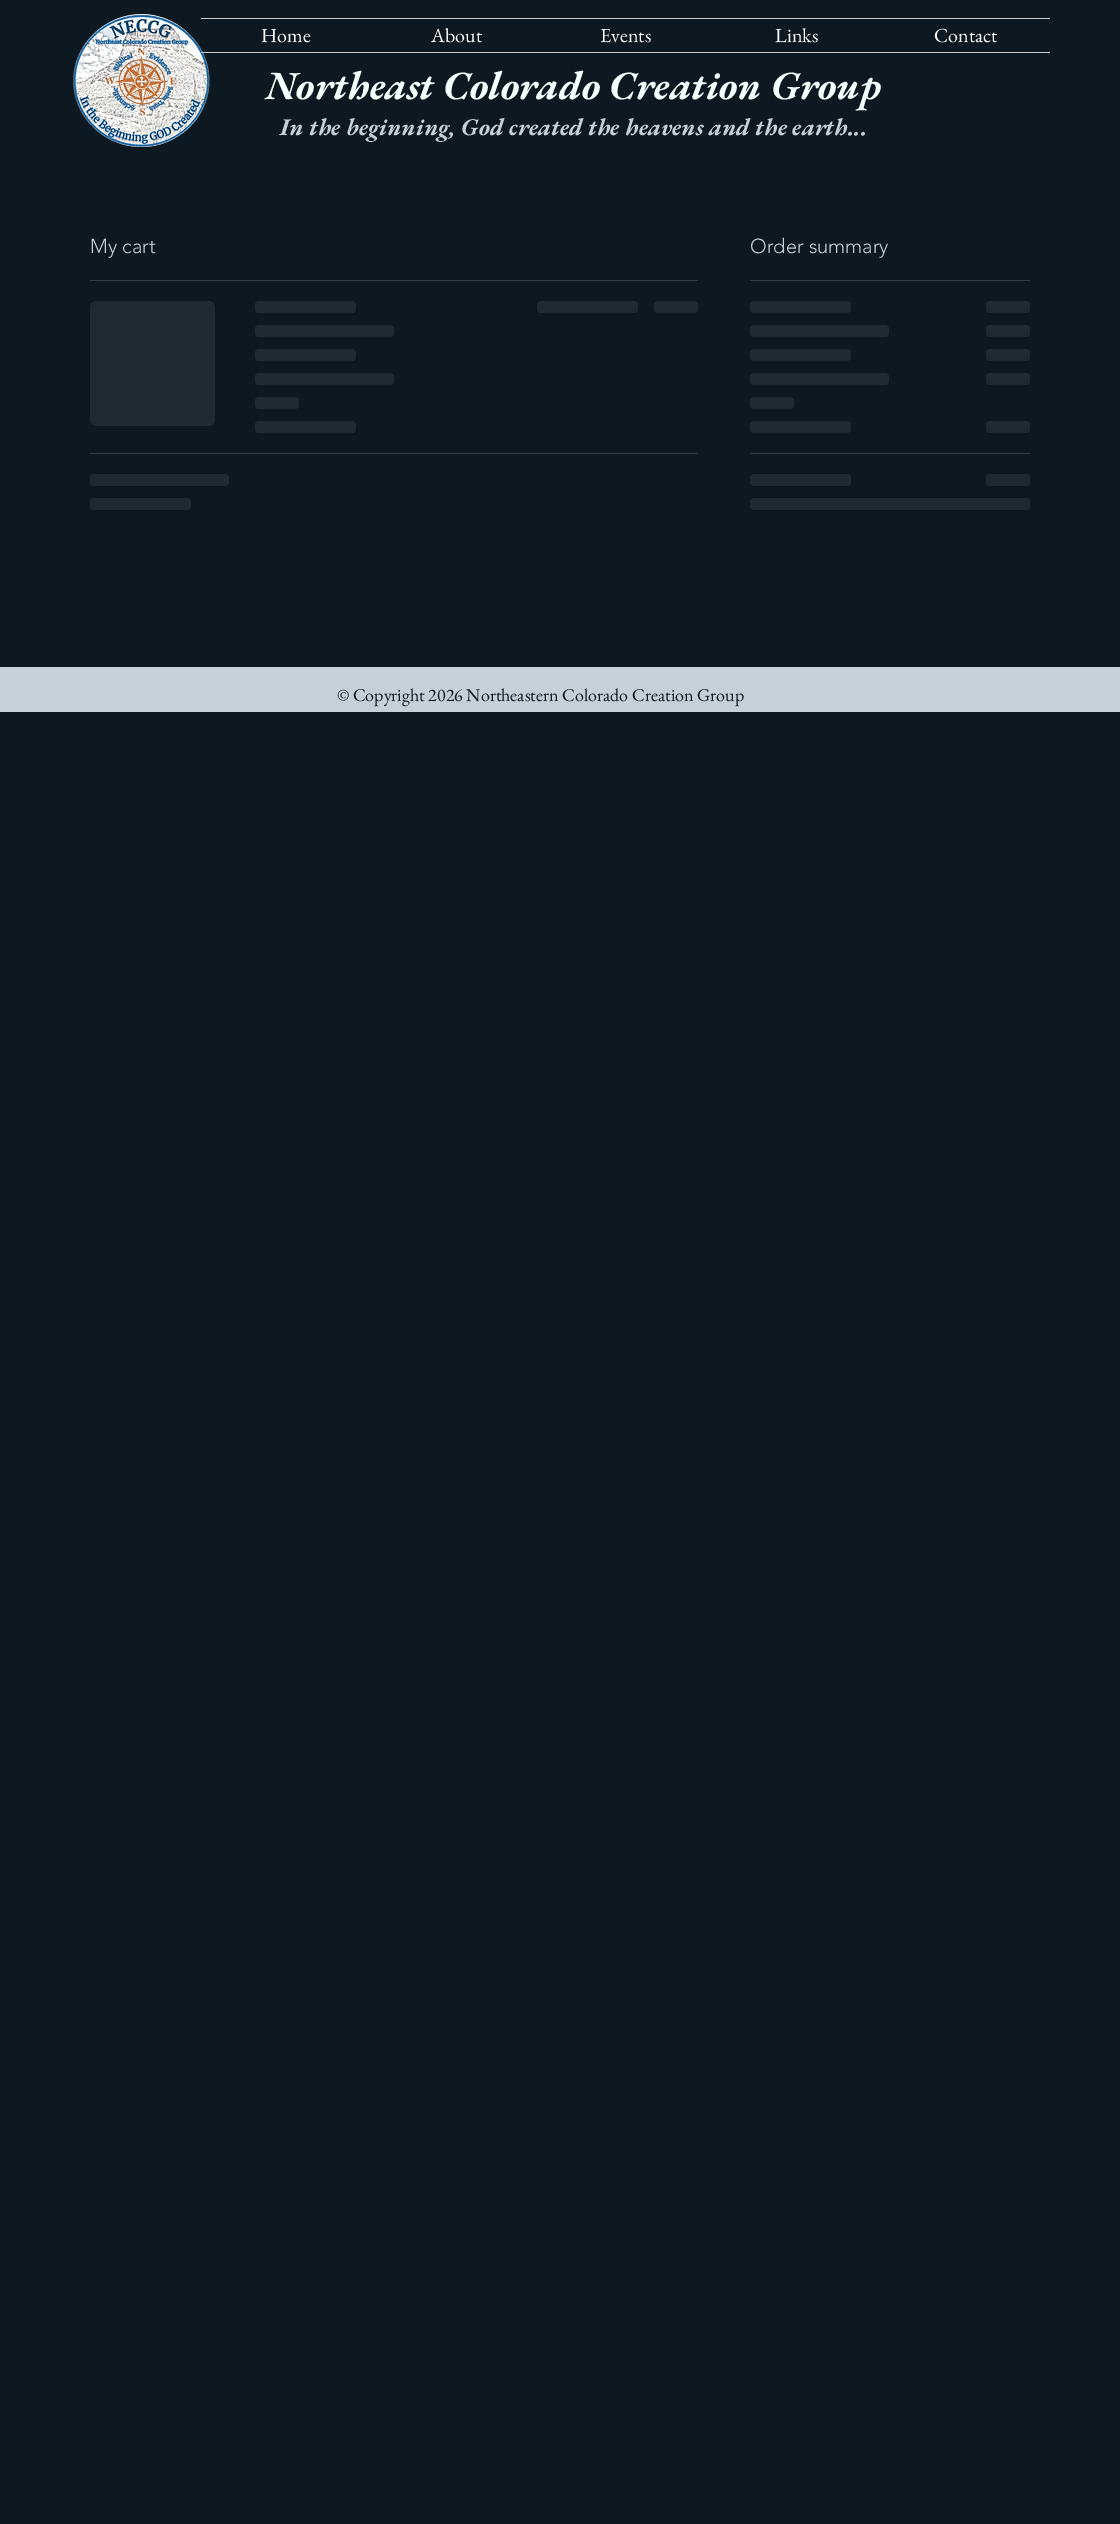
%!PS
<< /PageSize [1120 2524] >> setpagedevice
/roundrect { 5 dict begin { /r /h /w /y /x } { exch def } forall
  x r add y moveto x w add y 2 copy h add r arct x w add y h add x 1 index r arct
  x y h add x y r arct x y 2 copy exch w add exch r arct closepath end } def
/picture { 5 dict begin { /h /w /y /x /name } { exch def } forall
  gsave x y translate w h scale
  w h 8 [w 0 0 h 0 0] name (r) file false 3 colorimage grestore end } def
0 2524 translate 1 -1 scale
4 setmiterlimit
0.055 0.094 0.129 setrgbcolor
0 0 1120 2524 rectfill
(img1.rgb) 73 14 137 133 picture
0.792 setgray
201 18 849 1 rectfill
201 52 849 1 rectfill
/EBGaramond-Regular [20 0 0 -20 0 0] selectfont
1 setgray
261 42 moveto (Home) show
431 42 moveto (About) show
600 42 moveto (Events) show
775 42 moveto (Links) show
934 42 moveto (Contact) show
/EBGaramond-BoldItalic [40 0 0 -40 0 0] selectfont
0.961 1 0.996 setrgbcolor
265 99 moveto (Northeast Colorado Creation Group) show
/EBGaramond-BoldItalic [24 0 0 -24 0 0] selectfont
0.773 0.816 0.851 setrgbcolor
280 135 moveto (In the beginning, God created the heavens and the earth...) show
0.2 0.239 0.275 setrgbcolor
90 280 608 1 rectfill
/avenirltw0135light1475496-Light [20 0 0 -20 0 0] selectfont
0.773 0.816 0.851 setrgbcolor
90 253 moveto (My cart) show
gsave 90 301 125 125 8 roundrect clip newpath
<< /ShadingType 2 /ColorSpace /DeviceRGB /Coords [90 364 590 364] /Extend [true true] /Function << /FunctionType 3 /Domain [0 1] /Functions [<< /FunctionType 2 /Domain [0 1] /C0 [0.125 0.165 0.2] /C1 [0.125 0.165 0.2] /N 1 >> << /FunctionType 2 /Domain [0 1] /C0 [0.125 0.165 0.2] /C1 [0.2 0.239 0.275] /N 1 >> << /FunctionType 2 /Domain [0 1] /C0 [0.2 0.239 0.275] /C1 [0.125 0.165 0.2] /N 1 >> << /FunctionType 2 /Domain [0 1] /C0 [0.125 0.165 0.2] /C1 [0.125 0.165 0.2] /N 1 >>] /Bounds [0.25 0.37 0.63] /Encode [0 1 0 1 0 1 0 1] >> >> shfill grestore
gsave 255 301 101 12 6 roundrect clip newpath
<< /ShadingType 2 /ColorSpace /DeviceRGB /Coords [255 307 659 307] /Extend [true true] /Function << /FunctionType 3 /Domain [0 1] /Functions [<< /FunctionType 2 /Domain [0 1] /C0 [0.125 0.165 0.2] /C1 [0.125 0.165 0.2] /N 1 >> << /FunctionType 2 /Domain [0 1] /C0 [0.125 0.165 0.2] /C1 [0.2 0.239 0.275] /N 1 >> << /FunctionType 2 /Domain [0 1] /C0 [0.2 0.239 0.275] /C1 [0.125 0.165 0.2] /N 1 >> << /FunctionType 2 /Domain [0 1] /C0 [0.125 0.165 0.2] /C1 [0.125 0.165 0.2] /N 1 >>] /Bounds [0.25 0.37 0.63] /Encode [0 1 0 1 0 1 0 1] >> >> shfill grestore
gsave 255 325 139 12 6 roundrect clip newpath
<< /ShadingType 2 /ColorSpace /DeviceRGB /Coords [255 331 811 331] /Extend [true true] /Function << /FunctionType 3 /Domain [0 1] /Functions [<< /FunctionType 2 /Domain [0 1] /C0 [0.125 0.165 0.2] /C1 [0.125 0.165 0.2] /N 1 >> << /FunctionType 2 /Domain [0 1] /C0 [0.125 0.165 0.2] /C1 [0.2 0.239 0.275] /N 1 >> << /FunctionType 2 /Domain [0 1] /C0 [0.2 0.239 0.275] /C1 [0.125 0.165 0.2] /N 1 >> << /FunctionType 2 /Domain [0 1] /C0 [0.125 0.165 0.2] /C1 [0.125 0.165 0.2] /N 1 >>] /Bounds [0.25 0.37 0.63] /Encode [0 1 0 1 0 1 0 1] >> >> shfill grestore
gsave 255 349 101 12 6 roundrect clip newpath
<< /ShadingType 2 /ColorSpace /DeviceRGB /Coords [255 355 659 355] /Extend [true true] /Function << /FunctionType 3 /Domain [0 1] /Functions [<< /FunctionType 2 /Domain [0 1] /C0 [0.125 0.165 0.2] /C1 [0.125 0.165 0.2] /N 1 >> << /FunctionType 2 /Domain [0 1] /C0 [0.125 0.165 0.2] /C1 [0.2 0.239 0.275] /N 1 >> << /FunctionType 2 /Domain [0 1] /C0 [0.2 0.239 0.275] /C1 [0.125 0.165 0.2] /N 1 >> << /FunctionType 2 /Domain [0 1] /C0 [0.125 0.165 0.2] /C1 [0.125 0.165 0.2] /N 1 >>] /Bounds [0.25 0.37 0.63] /Encode [0 1 0 1 0 1 0 1] >> >> shfill grestore
gsave 255 373 139 12 6 roundrect clip newpath
<< /ShadingType 2 /ColorSpace /DeviceRGB /Coords [255 379 811 379] /Extend [true true] /Function << /FunctionType 3 /Domain [0 1] /Functions [<< /FunctionType 2 /Domain [0 1] /C0 [0.125 0.165 0.2] /C1 [0.125 0.165 0.2] /N 1 >> << /FunctionType 2 /Domain [0 1] /C0 [0.125 0.165 0.2] /C1 [0.2 0.239 0.275] /N 1 >> << /FunctionType 2 /Domain [0 1] /C0 [0.2 0.239 0.275] /C1 [0.125 0.165 0.2] /N 1 >> << /FunctionType 2 /Domain [0 1] /C0 [0.125 0.165 0.2] /C1 [0.125 0.165 0.2] /N 1 >>] /Bounds [0.25 0.37 0.63] /Encode [0 1 0 1 0 1 0 1] >> >> shfill grestore
gsave 255 397 44 12 6 roundrect clip newpath
<< /ShadingType 2 /ColorSpace /DeviceRGB /Coords [255 403 431 403] /Extend [true true] /Function << /FunctionType 3 /Domain [0 1] /Functions [<< /FunctionType 2 /Domain [0 1] /C0 [0.125 0.165 0.2] /C1 [0.125 0.165 0.2] /N 1 >> << /FunctionType 2 /Domain [0 1] /C0 [0.125 0.165 0.2] /C1 [0.2 0.239 0.275] /N 1 >> << /FunctionType 2 /Domain [0 1] /C0 [0.2 0.239 0.275] /C1 [0.125 0.165 0.2] /N 1 >> << /FunctionType 2 /Domain [0 1] /C0 [0.125 0.165 0.2] /C1 [0.125 0.165 0.2] /N 1 >>] /Bounds [0.25 0.37 0.63] /Encode [0 1 0 1 0 1 0 1] >> >> shfill grestore
gsave 255 421 101 12 6 roundrect clip newpath
<< /ShadingType 2 /ColorSpace /DeviceRGB /Coords [255 427 659 427] /Extend [true true] /Function << /FunctionType 3 /Domain [0 1] /Functions [<< /FunctionType 2 /Domain [0 1] /C0 [0.125 0.165 0.2] /C1 [0.125 0.165 0.2] /N 1 >> << /FunctionType 2 /Domain [0 1] /C0 [0.125 0.165 0.2] /C1 [0.2 0.239 0.275] /N 1 >> << /FunctionType 2 /Domain [0 1] /C0 [0.2 0.239 0.275] /C1 [0.125 0.165 0.2] /N 1 >> << /FunctionType 2 /Domain [0 1] /C0 [0.125 0.165 0.2] /C1 [0.125 0.165 0.2] /N 1 >>] /Bounds [0.25 0.37 0.63] /Encode [0 1 0 1 0 1 0 1] >> >> shfill grestore
gsave 537 301 101 12 6 roundrect clip newpath
<< /ShadingType 2 /ColorSpace /DeviceRGB /Coords [537 307 941 307] /Extend [true true] /Function << /FunctionType 3 /Domain [0 1] /Functions [<< /FunctionType 2 /Domain [0 1] /C0 [0.125 0.165 0.2] /C1 [0.125 0.165 0.2] /N 1 >> << /FunctionType 2 /Domain [0 1] /C0 [0.125 0.165 0.2] /C1 [0.2 0.239 0.275] /N 1 >> << /FunctionType 2 /Domain [0 1] /C0 [0.2 0.239 0.275] /C1 [0.125 0.165 0.2] /N 1 >> << /FunctionType 2 /Domain [0 1] /C0 [0.125 0.165 0.2] /C1 [0.125 0.165 0.2] /N 1 >>] /Bounds [0.25 0.37 0.63] /Encode [0 1 0 1 0 1 0 1] >> >> shfill grestore
gsave 654 301 44 12 6 roundrect clip newpath
<< /ShadingType 2 /ColorSpace /DeviceRGB /Coords [654 307 830 307] /Extend [true true] /Function << /FunctionType 3 /Domain [0 1] /Functions [<< /FunctionType 2 /Domain [0 1] /C0 [0.125 0.165 0.2] /C1 [0.125 0.165 0.2] /N 1 >> << /FunctionType 2 /Domain [0 1] /C0 [0.125 0.165 0.2] /C1 [0.2 0.239 0.275] /N 1 >> << /FunctionType 2 /Domain [0 1] /C0 [0.2 0.239 0.275] /C1 [0.125 0.165 0.2] /N 1 >> << /FunctionType 2 /Domain [0 1] /C0 [0.125 0.165 0.2] /C1 [0.125 0.165 0.2] /N 1 >>] /Bounds [0.25 0.37 0.63] /Encode [0 1 0 1 0 1 0 1] >> >> shfill grestore
0.2 0.239 0.275 setrgbcolor
90 453 608 1 rectfill
gsave 90 474 139 12 6 roundrect clip newpath
<< /ShadingType 2 /ColorSpace /DeviceRGB /Coords [90 480 646 480] /Extend [true true] /Function << /FunctionType 3 /Domain [0 1] /Functions [<< /FunctionType 2 /Domain [0 1] /C0 [0.125 0.165 0.2] /C1 [0.125 0.165 0.2] /N 1 >> << /FunctionType 2 /Domain [0 1] /C0 [0.125 0.165 0.2] /C1 [0.2 0.239 0.275] /N 1 >> << /FunctionType 2 /Domain [0 1] /C0 [0.2 0.239 0.275] /C1 [0.125 0.165 0.2] /N 1 >> << /FunctionType 2 /Domain [0 1] /C0 [0.125 0.165 0.2] /C1 [0.125 0.165 0.2] /N 1 >>] /Bounds [0.25 0.37 0.63] /Encode [0 1 0 1 0 1 0 1] >> >> shfill grestore
gsave 90 498 101 12 6 roundrect clip newpath
<< /ShadingType 2 /ColorSpace /DeviceRGB /Coords [90 504 494 504] /Extend [true true] /Function << /FunctionType 3 /Domain [0 1] /Functions [<< /FunctionType 2 /Domain [0 1] /C0 [0.125 0.165 0.2] /C1 [0.125 0.165 0.2] /N 1 >> << /FunctionType 2 /Domain [0 1] /C0 [0.125 0.165 0.2] /C1 [0.2 0.239 0.275] /N 1 >> << /FunctionType 2 /Domain [0 1] /C0 [0.2 0.239 0.275] /C1 [0.125 0.165 0.2] /N 1 >> << /FunctionType 2 /Domain [0 1] /C0 [0.125 0.165 0.2] /C1 [0.125 0.165 0.2] /N 1 >>] /Bounds [0.25 0.37 0.63] /Encode [0 1 0 1 0 1 0 1] >> >> shfill grestore
750 280 280 1 rectfill
0.773 0.816 0.851 setrgbcolor
750 253 moveto (Order summary) show
gsave 750 301 101 12 6 roundrect clip newpath
<< /ShadingType 2 /ColorSpace /DeviceRGB /Coords [750 307 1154 307] /Extend [true true] /Function << /FunctionType 3 /Domain [0 1] /Functions [<< /FunctionType 2 /Domain [0 1] /C0 [0.125 0.165 0.2] /C1 [0.125 0.165 0.2] /N 1 >> << /FunctionType 2 /Domain [0 1] /C0 [0.125 0.165 0.2] /C1 [0.2 0.239 0.275] /N 1 >> << /FunctionType 2 /Domain [0 1] /C0 [0.2 0.239 0.275] /C1 [0.125 0.165 0.2] /N 1 >> << /FunctionType 2 /Domain [0 1] /C0 [0.125 0.165 0.2] /C1 [0.125 0.165 0.2] /N 1 >>] /Bounds [0.25 0.37 0.63] /Encode [0 1 0 1 0 1 0 1] >> >> shfill grestore
gsave 986 301 44 12 6 roundrect clip newpath
<< /ShadingType 2 /ColorSpace /DeviceRGB /Coords [986 307 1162 307] /Extend [true true] /Function << /FunctionType 3 /Domain [0 1] /Functions [<< /FunctionType 2 /Domain [0 1] /C0 [0.125 0.165 0.2] /C1 [0.125 0.165 0.2] /N 1 >> << /FunctionType 2 /Domain [0 1] /C0 [0.125 0.165 0.2] /C1 [0.2 0.239 0.275] /N 1 >> << /FunctionType 2 /Domain [0 1] /C0 [0.2 0.239 0.275] /C1 [0.125 0.165 0.2] /N 1 >> << /FunctionType 2 /Domain [0 1] /C0 [0.125 0.165 0.2] /C1 [0.125 0.165 0.2] /N 1 >>] /Bounds [0.25 0.37 0.63] /Encode [0 1 0 1 0 1 0 1] >> >> shfill grestore
gsave 750 325 139 12 6 roundrect clip newpath
<< /ShadingType 2 /ColorSpace /DeviceRGB /Coords [750 331 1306 331] /Extend [true true] /Function << /FunctionType 3 /Domain [0 1] /Functions [<< /FunctionType 2 /Domain [0 1] /C0 [0.125 0.165 0.2] /C1 [0.125 0.165 0.2] /N 1 >> << /FunctionType 2 /Domain [0 1] /C0 [0.125 0.165 0.2] /C1 [0.2 0.239 0.275] /N 1 >> << /FunctionType 2 /Domain [0 1] /C0 [0.2 0.239 0.275] /C1 [0.125 0.165 0.2] /N 1 >> << /FunctionType 2 /Domain [0 1] /C0 [0.125 0.165 0.2] /C1 [0.125 0.165 0.2] /N 1 >>] /Bounds [0.25 0.37 0.63] /Encode [0 1 0 1 0 1 0 1] >> >> shfill grestore
gsave 986 325 44 12 6 roundrect clip newpath
<< /ShadingType 2 /ColorSpace /DeviceRGB /Coords [986 331 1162 331] /Extend [true true] /Function << /FunctionType 3 /Domain [0 1] /Functions [<< /FunctionType 2 /Domain [0 1] /C0 [0.125 0.165 0.2] /C1 [0.125 0.165 0.2] /N 1 >> << /FunctionType 2 /Domain [0 1] /C0 [0.125 0.165 0.2] /C1 [0.2 0.239 0.275] /N 1 >> << /FunctionType 2 /Domain [0 1] /C0 [0.2 0.239 0.275] /C1 [0.125 0.165 0.2] /N 1 >> << /FunctionType 2 /Domain [0 1] /C0 [0.125 0.165 0.2] /C1 [0.125 0.165 0.2] /N 1 >>] /Bounds [0.25 0.37 0.63] /Encode [0 1 0 1 0 1 0 1] >> >> shfill grestore
gsave 750 349 101 12 6 roundrect clip newpath
<< /ShadingType 2 /ColorSpace /DeviceRGB /Coords [750 355 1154 355] /Extend [true true] /Function << /FunctionType 3 /Domain [0 1] /Functions [<< /FunctionType 2 /Domain [0 1] /C0 [0.125 0.165 0.2] /C1 [0.125 0.165 0.2] /N 1 >> << /FunctionType 2 /Domain [0 1] /C0 [0.125 0.165 0.2] /C1 [0.2 0.239 0.275] /N 1 >> << /FunctionType 2 /Domain [0 1] /C0 [0.2 0.239 0.275] /C1 [0.125 0.165 0.2] /N 1 >> << /FunctionType 2 /Domain [0 1] /C0 [0.125 0.165 0.2] /C1 [0.125 0.165 0.2] /N 1 >>] /Bounds [0.25 0.37 0.63] /Encode [0 1 0 1 0 1 0 1] >> >> shfill grestore
gsave 986 349 44 12 6 roundrect clip newpath
<< /ShadingType 2 /ColorSpace /DeviceRGB /Coords [986 355 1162 355] /Extend [true true] /Function << /FunctionType 3 /Domain [0 1] /Functions [<< /FunctionType 2 /Domain [0 1] /C0 [0.125 0.165 0.2] /C1 [0.125 0.165 0.2] /N 1 >> << /FunctionType 2 /Domain [0 1] /C0 [0.125 0.165 0.2] /C1 [0.2 0.239 0.275] /N 1 >> << /FunctionType 2 /Domain [0 1] /C0 [0.2 0.239 0.275] /C1 [0.125 0.165 0.2] /N 1 >> << /FunctionType 2 /Domain [0 1] /C0 [0.125 0.165 0.2] /C1 [0.125 0.165 0.2] /N 1 >>] /Bounds [0.25 0.37 0.63] /Encode [0 1 0 1 0 1 0 1] >> >> shfill grestore
gsave 750 373 139 12 6 roundrect clip newpath
<< /ShadingType 2 /ColorSpace /DeviceRGB /Coords [750 379 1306 379] /Extend [true true] /Function << /FunctionType 3 /Domain [0 1] /Functions [<< /FunctionType 2 /Domain [0 1] /C0 [0.125 0.165 0.2] /C1 [0.125 0.165 0.2] /N 1 >> << /FunctionType 2 /Domain [0 1] /C0 [0.125 0.165 0.2] /C1 [0.2 0.239 0.275] /N 1 >> << /FunctionType 2 /Domain [0 1] /C0 [0.2 0.239 0.275] /C1 [0.125 0.165 0.2] /N 1 >> << /FunctionType 2 /Domain [0 1] /C0 [0.125 0.165 0.2] /C1 [0.125 0.165 0.2] /N 1 >>] /Bounds [0.25 0.37 0.63] /Encode [0 1 0 1 0 1 0 1] >> >> shfill grestore
gsave 986 373 44 12 6 roundrect clip newpath
<< /ShadingType 2 /ColorSpace /DeviceRGB /Coords [986 379 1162 379] /Extend [true true] /Function << /FunctionType 3 /Domain [0 1] /Functions [<< /FunctionType 2 /Domain [0 1] /C0 [0.125 0.165 0.2] /C1 [0.125 0.165 0.2] /N 1 >> << /FunctionType 2 /Domain [0 1] /C0 [0.125 0.165 0.2] /C1 [0.2 0.239 0.275] /N 1 >> << /FunctionType 2 /Domain [0 1] /C0 [0.2 0.239 0.275] /C1 [0.125 0.165 0.2] /N 1 >> << /FunctionType 2 /Domain [0 1] /C0 [0.125 0.165 0.2] /C1 [0.125 0.165 0.2] /N 1 >>] /Bounds [0.25 0.37 0.63] /Encode [0 1 0 1 0 1 0 1] >> >> shfill grestore
gsave 750 397 44 12 6 roundrect clip newpath
<< /ShadingType 2 /ColorSpace /DeviceRGB /Coords [750 403 926 403] /Extend [true true] /Function << /FunctionType 3 /Domain [0 1] /Functions [<< /FunctionType 2 /Domain [0 1] /C0 [0.125 0.165 0.2] /C1 [0.125 0.165 0.2] /N 1 >> << /FunctionType 2 /Domain [0 1] /C0 [0.125 0.165 0.2] /C1 [0.2 0.239 0.275] /N 1 >> << /FunctionType 2 /Domain [0 1] /C0 [0.2 0.239 0.275] /C1 [0.125 0.165 0.2] /N 1 >> << /FunctionType 2 /Domain [0 1] /C0 [0.125 0.165 0.2] /C1 [0.125 0.165 0.2] /N 1 >>] /Bounds [0.25 0.37 0.63] /Encode [0 1 0 1 0 1 0 1] >> >> shfill grestore
gsave 750 421 101 12 6 roundrect clip newpath
<< /ShadingType 2 /ColorSpace /DeviceRGB /Coords [750 427 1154 427] /Extend [true true] /Function << /FunctionType 3 /Domain [0 1] /Functions [<< /FunctionType 2 /Domain [0 1] /C0 [0.125 0.165 0.2] /C1 [0.125 0.165 0.2] /N 1 >> << /FunctionType 2 /Domain [0 1] /C0 [0.125 0.165 0.2] /C1 [0.2 0.239 0.275] /N 1 >> << /FunctionType 2 /Domain [0 1] /C0 [0.2 0.239 0.275] /C1 [0.125 0.165 0.2] /N 1 >> << /FunctionType 2 /Domain [0 1] /C0 [0.125 0.165 0.2] /C1 [0.125 0.165 0.2] /N 1 >>] /Bounds [0.25 0.37 0.63] /Encode [0 1 0 1 0 1 0 1] >> >> shfill grestore
gsave 986 421 44 12 6 roundrect clip newpath
<< /ShadingType 2 /ColorSpace /DeviceRGB /Coords [986 427 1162 427] /Extend [true true] /Function << /FunctionType 3 /Domain [0 1] /Functions [<< /FunctionType 2 /Domain [0 1] /C0 [0.125 0.165 0.2] /C1 [0.125 0.165 0.2] /N 1 >> << /FunctionType 2 /Domain [0 1] /C0 [0.125 0.165 0.2] /C1 [0.2 0.239 0.275] /N 1 >> << /FunctionType 2 /Domain [0 1] /C0 [0.2 0.239 0.275] /C1 [0.125 0.165 0.2] /N 1 >> << /FunctionType 2 /Domain [0 1] /C0 [0.125 0.165 0.2] /C1 [0.125 0.165 0.2] /N 1 >>] /Bounds [0.25 0.37 0.63] /Encode [0 1 0 1 0 1 0 1] >> >> shfill grestore
0.2 0.239 0.275 setrgbcolor
750 453 280 1 rectfill
gsave 750 474 101 12 6 roundrect clip newpath
<< /ShadingType 2 /ColorSpace /DeviceRGB /Coords [750 480 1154 480] /Extend [true true] /Function << /FunctionType 3 /Domain [0 1] /Functions [<< /FunctionType 2 /Domain [0 1] /C0 [0.125 0.165 0.2] /C1 [0.125 0.165 0.2] /N 1 >> << /FunctionType 2 /Domain [0 1] /C0 [0.125 0.165 0.2] /C1 [0.2 0.239 0.275] /N 1 >> << /FunctionType 2 /Domain [0 1] /C0 [0.2 0.239 0.275] /C1 [0.125 0.165 0.2] /N 1 >> << /FunctionType 2 /Domain [0 1] /C0 [0.125 0.165 0.2] /C1 [0.125 0.165 0.2] /N 1 >>] /Bounds [0.25 0.37 0.63] /Encode [0 1 0 1 0 1 0 1] >> >> shfill grestore
gsave 986 474 44 12 6 roundrect clip newpath
<< /ShadingType 2 /ColorSpace /DeviceRGB /Coords [986 480 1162 480] /Extend [true true] /Function << /FunctionType 3 /Domain [0 1] /Functions [<< /FunctionType 2 /Domain [0 1] /C0 [0.125 0.165 0.2] /C1 [0.125 0.165 0.2] /N 1 >> << /FunctionType 2 /Domain [0 1] /C0 [0.125 0.165 0.2] /C1 [0.2 0.239 0.275] /N 1 >> << /FunctionType 2 /Domain [0 1] /C0 [0.2 0.239 0.275] /C1 [0.125 0.165 0.2] /N 1 >> << /FunctionType 2 /Domain [0 1] /C0 [0.125 0.165 0.2] /C1 [0.125 0.165 0.2] /N 1 >>] /Bounds [0.25 0.37 0.63] /Encode [0 1 0 1 0 1 0 1] >> >> shfill grestore
gsave 750 498 280 12 6 roundrect clip newpath
<< /ShadingType 2 /ColorSpace /DeviceRGB /Coords [750 504 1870 504] /Extend [true true] /Function << /FunctionType 3 /Domain [0 1] /Functions [<< /FunctionType 2 /Domain [0 1] /C0 [0.125 0.165 0.2] /C1 [0.125 0.165 0.2] /N 1 >> << /FunctionType 2 /Domain [0 1] /C0 [0.125 0.165 0.2] /C1 [0.2 0.239 0.275] /N 1 >> << /FunctionType 2 /Domain [0 1] /C0 [0.2 0.239 0.275] /C1 [0.125 0.165 0.2] /N 1 >> << /FunctionType 2 /Domain [0 1] /C0 [0.125 0.165 0.2] /C1 [0.125 0.165 0.2] /N 1 >>] /Bounds [0.25 0.37 0.63] /Encode [0 1 0 1 0 1 0 1] >> >> shfill grestore
0.773 0.816 0.851 setrgbcolor
0 667 1120 45 rectfill
/EBGaramond-Regular [18 0 0 -18 0 0] selectfont
0.055 0.094 0.129 setrgbcolor
337 701 moveto (© Copyright 2026 Northeastern Colorado Creation Group) show
showpage
